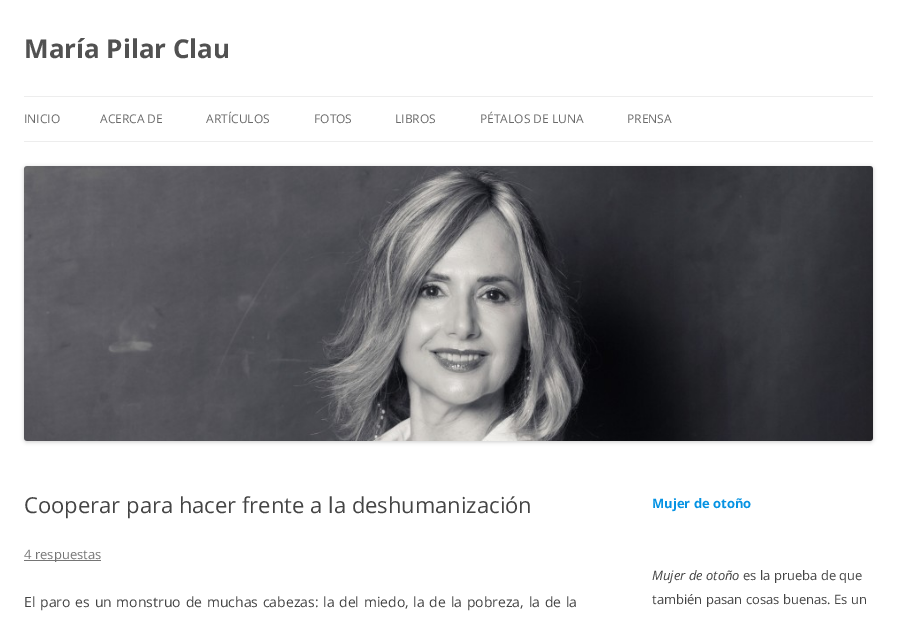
%!PS
<< /PageSize [897 617] /PageUsesTransparency true >> setpagedevice
/alpha { dup .setfillconstantalpha .setstrokeconstantalpha } def
/roundrect { 5 dict begin { /r /h /w /y /x } { exch def } forall
  x r add y moveto x w add y 2 copy h add r arct x w add y h add x 1 index r arct
  x y h add x y r arct x y 2 copy exch w add exch r arct closepath end } def
/shadow { 12 dict begin { /a /b /q /h /w /y /x } { exch def } forall gsave /was 0 def
  9 -2 -9 { dup b mul 4 div /e exch def 1 sub .425 mul 2.718 exch exp 1 add a .99 .min exch div /now exch def
    1 1 now sub 1 was sub div sub alpha /was now def
    w h .min e 2 mul add 0 gt { x e sub y e sub w e 2 mul add h e 2 mul add
      q e add b .6 mul add w h .min 2 div e add .min 0 .max roundrect fill } if } for grestore end } def
/picture { 5 dict begin { /h /w /y /x /name } { exch def } forall
  gsave x y translate w h scale
  w h 8 [w 0 0 h 0 0] name (r) file false 3 colorimage grestore end } def
0 .pushpdf14devicefilter
0 617 translate 1 -1 scale
4 setmiterlimit
1 setgray
0 0 897 617 rectfill
/OpenSans-Bold [26 0 0 -26 0 0] selectfont
0.318 setgray
24 58 moveto (María Pilar Clau) show
0.929 setgray
24 96 849 1 rectfill
24 141 849 1 rectfill
/OpenSans-Regular [12 0 0 -12 0 0] selectfont
0.416 setgray
24 123 moveto (INICIO) show
100 123 moveto (ACERCA DE) show
206 123 moveto (ARTÍCULOS) show
314 123 moveto (FOTOS) show
395 123 moveto (LIBROS) show
480 123 moveto (PÉTALOS DE LUNA) show
627 123 moveto (PRENSA) show
0 setgray
24 167 849 275 3 2 0.2 shadow
(img1.rgb) 24 166 849 275 picture
/OpenSans-Regular [22 0 0 -22 0 0] selectfont
0.267 setgray
24 513 moveto (Cooperar para hacer frente a la deshumanización) show
0.459 setgray
24 560 77 1 rectfill
/OpenSans-Regular [13 0 0 -13 0 0] selectfont
24 559 moveto (4 respuestas) show
/OpenSans-Regular [14 0 0 -14 0 0] selectfont
0.267 setgray
24 607 moveto 1.1 0 32 (El paro es un monstruo de muchas cabezas: la del miedo, la de la pobreza, la de la) widthshow
/OpenSans-Bold [13 0 0 -13 0 0] selectfont
0.024 0.576 0.89 setrgbcolor
652 508 moveto (Mujer de otoño) show
/OpenSans-Italic [13 0 0 -13 0 0] selectfont
0.267 setgray
652 580 moveto (Mujer de otoño) show
/OpenSans-Regular [13 0 0 -13 0 0] selectfont
743 580 moveto (es la prueba de que) show
652 604 moveto (también pasan cosas buenas. Es un) show
.poppdf14devicefilter showpage
